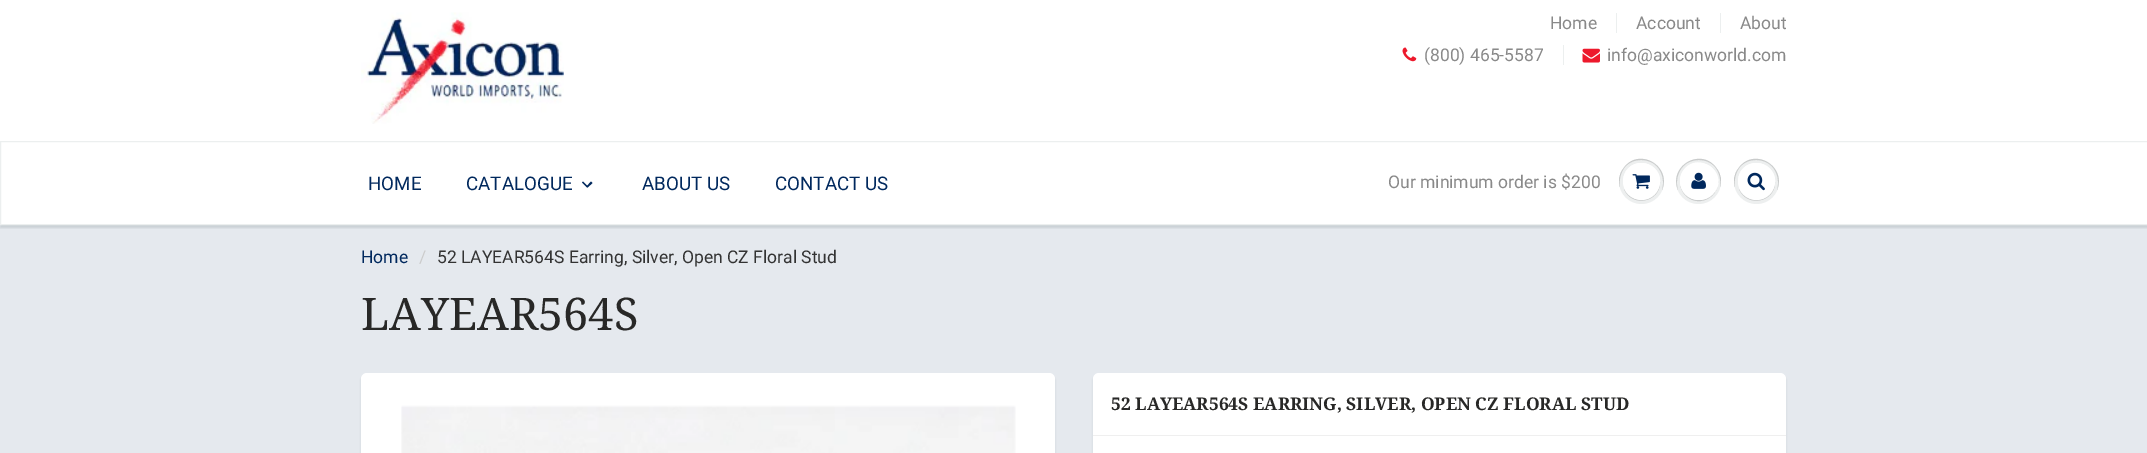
%!PS
<< /PageSize [2147 453] /PageUsesTransparency true >> setpagedevice
/alpha { dup .setfillconstantalpha .setstrokeconstantalpha } def
/roundrect { 5 dict begin { /r /h /w /y /x } { exch def } forall
  x r add y moveto x w add y 2 copy h add r arct x w add y h add x 1 index r arct
  x y h add x y r arct x y 2 copy exch w add exch r arct closepath end } def
/shadow { 12 dict begin { /a /b /q /h /w /y /x } { exch def } forall gsave /was 0 def
  9 -2 -9 { dup b mul 4 div /e exch def 1 sub .425 mul 2.718 exch exp 1 add a .99 .min exch div /now exch def
    1 1 now sub 1 was sub div sub alpha /was now def
    w h .min e 2 mul add 0 gt { x e sub y e sub w e 2 mul add h e 2 mul add
      q e add b .6 mul add w h .min 2 div e add .min 0 .max roundrect fill } if } for grestore end } def
/picture { 5 dict begin { /h /w /y /x /name } { exch def } forall
  gsave x y translate w h scale
  w h 8 [w 0 0 h 0 0] name (r) file false 3 colorimage grestore end } def
0 .pushpdf14devicefilter
0 453 translate 1 -1 scale
4 setmiterlimit
1 setgray
0 0 2147 453 rectfill
(img1.rgb) 361 12 203 112 picture
/Roboto-Regular [17.5 0 0 -17.5 0 0] selectfont
0.537 setgray
1550 29 moveto (Home) show
0.925 0.937 0.937 setrgbcolor
1616 13 1 20 rectfill
0.537 setgray
1636 29 moveto (Account) show
0.925 0.937 0.937 setrgbcolor
1720 13 1 20 rectfill
0.537 setgray
1740 29 moveto (About) show
(img2.rgb) 1402 47 15 15 picture
1424 61 moveto (\(800\) 465-5587) show
0.925 0.937 0.937 setrgbcolor
1563 45 1 20 rectfill
(img3.rgb) 1582 48 18 15 picture
0.537 setgray
1607 61 moveto (info@axiconworld.com) show
0.929 0.937 0.937 setrgbcolor
newpath 1641.5 181.5 22.5 0 360 arc closepath fill
0.788 0.796 0.796 setrgbcolor
newpath 1641 160 moveto 1659 160 1666 177 1662 190 curveto 1672 166 1638 146 1623 169 curveto 1619 174 1618 181 1620 187 curveto 1618 174 1625 160 1641 160 curveto closepath fill
0.929 0.937 0.937 setrgbcolor
newpath 1698.5 181.5 22.5 0 360 arc closepath fill
0.788 0.796 0.796 setrgbcolor
newpath 1699 160 moveto 1715 160 1722 174 1720 187 curveto 1722 181 1721 174 1717 169 curveto 1702 146 1668 166 1678 190 curveto 1674 177 1681 160 1699 160 curveto closepath fill
0.929 0.937 0.937 setrgbcolor
newpath 1756.5 181.5 22.5 0 360 arc closepath fill
0.788 0.796 0.796 setrgbcolor
newpath 1756 160 moveto 1774 160 1781 177 1777 190 curveto 1787 166 1753 146 1738 169 curveto 1734 174 1733 181 1735 187 curveto 1733 174 1740 160 1756 160 curveto closepath fill
0.898 0.914 0.933 setrgbcolor
0 225 2147 228 rectfill
gsave
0 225 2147 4 rectclip
0.043 0.098 0.11 setrgbcolor
0 144 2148 84 0 1 0.12 shadow
grestore
0.925 0.937 0.937 setrgbcolor
0.5 141.5 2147 83 rectstroke
/Roboto-Regular [18.75 0 0 -18.75 0 0] selectfont
0 0.157 0.365 setrgbcolor
368 190 moveto (HOME) show
466 190 moveto (CATALOGUE) show
newpath 591 181.5 moveto 592.5 183 lineto 587.5 187.5 lineto 586.5 186.5 lineto closepath fill
newpath 583 181.5 moveto 588 186.5 lineto 587 187.5 lineto 582 182.5 lineto closepath fill
642 190 moveto (ABOUT US) show
775 190 moveto (CONTACT US) show
/Roboto-Regular [17.5 0 0 -17.5 0 0] selectfont
0.537 setgray
1388 188 moveto (Our minimum order is $200) show
0.788 0.796 0.796 setrgbcolor
newpath 1624 189 moveto 1631.5 208 1660.5 202.5 1660 182 curveto 1659.5 201.5 1632.5 206.5 1624 189 curveto closepath fill
1 setgray
newpath 1641.5 181.5 18.5 0 360 arc closepath fill
newpath 1641 164 moveto 1655 164 1661 175.5 1659.5 186 curveto 1664.5 166.5 1638 154 1626 171 curveto 1624 174.5 1623 178 1623 182 curveto 1623 173 1629 164 1641 164 curveto closepath fill
(img4.rgb) 1632 174 18 15 picture
0.788 0.796 0.796 setrgbcolor
newpath 1680 182 moveto 1680 187 1682 192 1685.5 195.5 curveto 1700 210 1724.5 194 1716.5 175 curveto 1722.5 193.5 1700 208.5 1685.5 194.5 curveto 1682 191.5 1680 186.5 1680 182 curveto closepath fill
1 setgray
1680 163 38 37 18.5 roundrect fill
newpath 1699 164 moveto 1715 164 1721 181 1715 192 curveto 1729 172 1697 150 1683 171 curveto 1680 175 1679 181 1681 186 curveto 1679 176 1685 164 1699 164 curveto closepath fill
(img5.rgb) 1691 172 15 17 picture
0.788 0.796 0.796 setrgbcolor
newpath 1739 189 moveto 1746.5 208 1775.5 202.5 1775 182 curveto 1774.5 201.5 1747.5 206.5 1739 189 curveto closepath fill
1 setgray
newpath 1756.5 181.5 18.5 0 360 arc closepath fill
newpath 1756 164 moveto 1770 164 1776 175.5 1774.5 186 curveto 1779.5 166.5 1753 154 1741 171 curveto 1739 174.5 1738 178 1738 182 curveto 1738 173 1744 164 1756 164 curveto closepath fill
(img6.rgb) 1747 172 18 19 picture
0 0.157 0.365 setrgbcolor
361 263 moveto (Home) show
0.8 setgray
419 263 moveto (/) show
0.2 setgray
437 263 moveto (52 LAYEAR564S Earring, Silver, Open CZ Floral Stud) show
/DroidSerif-Regular [45 0 0 -45 0 0] selectfont
0.157 0.157 0.153 setrgbcolor
361 330 moveto (LAYEAR564S) show
0.043 0.098 0.11 setrgbcolor
361 375 694 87 6 1 0.1 shadow
1 setgray
361 373 694 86 6 roundrect fill
(img7.rgb) 401 405 615 48 picture
0.043 0.098 0.11 setrgbcolor
1093 375 693 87 6 1 0.1 shadow
1 setgray
1093 373 693 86 6 roundrect fill
0.937 setgray
1093 435 693 1 rectfill
/DroidSerif-Bold [17.5 0 0 -17.5 0 0] selectfont
0.157 0.157 0.153 setrgbcolor
1111 410 moveto (52 LAYEAR564S EARRING, SILVER, OPEN CZ FLORAL STUD) show
.poppdf14devicefilter showpage
